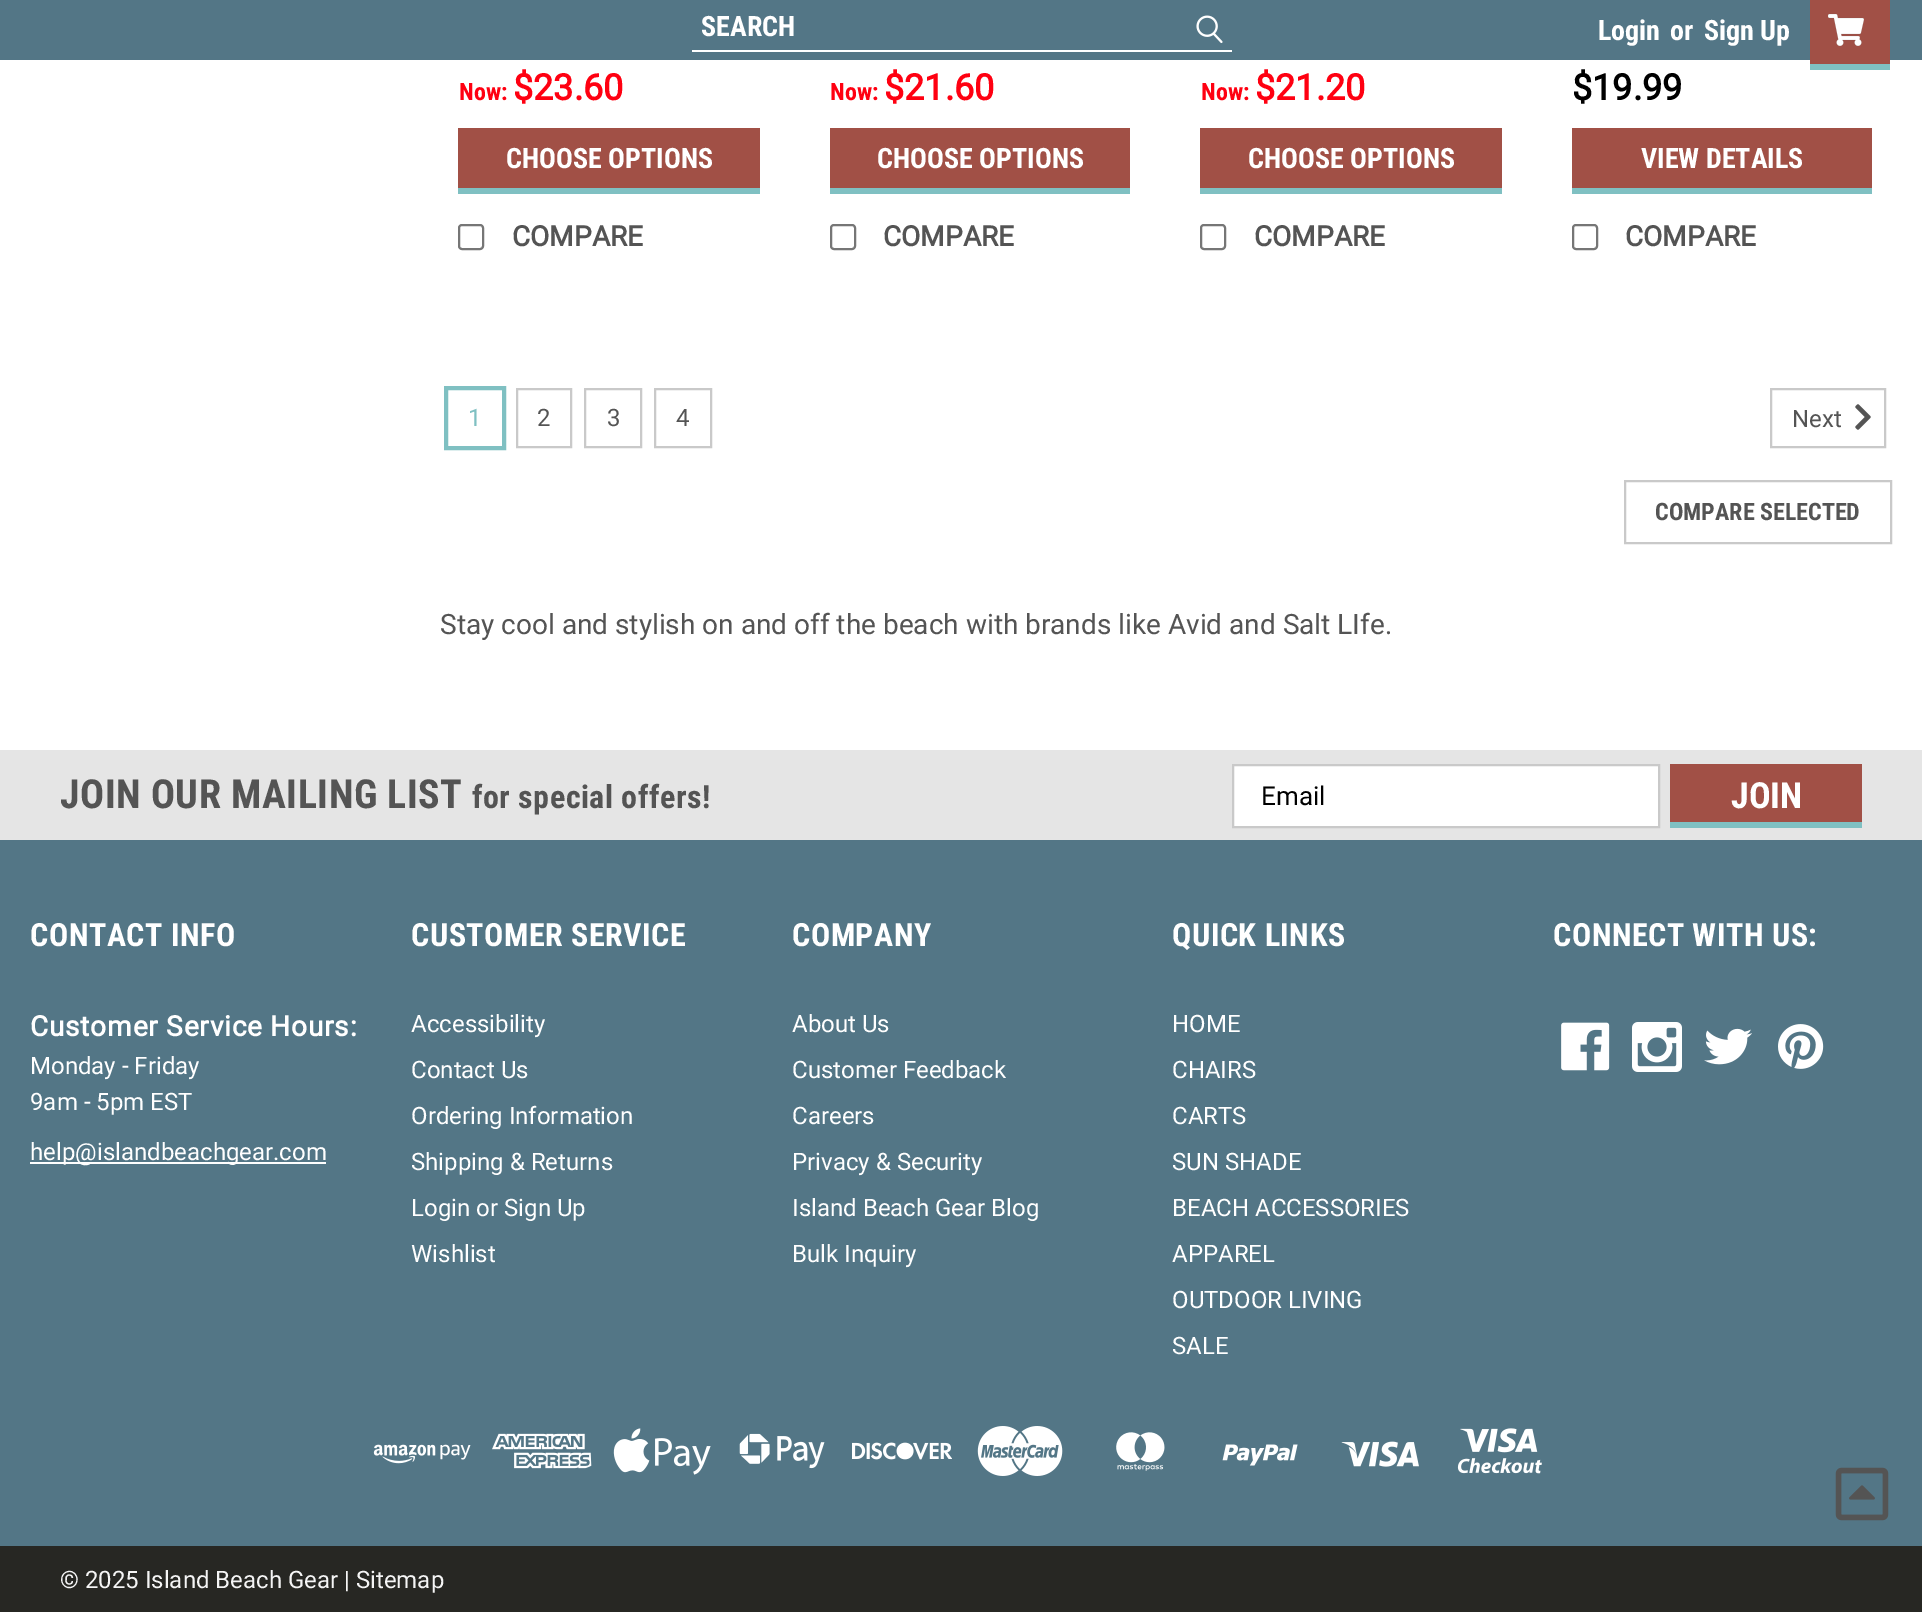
%!PS
<< /PageSize [1922 1620] >> setpagedevice
/roundrect { 5 dict begin { /r /h /w /y /x } { exch def } forall
  x r add y moveto x w add y 2 copy h add r arct x w add y h add x 1 index r arct
  x y h add x y r arct x y 2 copy exch w add exch r arct closepath end } def
/picture { 5 dict begin { /h /w /y /x /name } { exch def } forall
  gsave x y translate w h scale
  w h 8 [w 0 0 h 0 0] name (r) file false 3 colorimage grestore end } def
0 1620 translate 1 -1 scale
4 setmiterlimit
1 setgray
0 0 1922 1620 rectfill
0.325 0.463 0.525 setrgbcolor
0 0 1922 60 rectfill
1 setgray
692 50 540 2 rectfill
/RobotoCondensed-Bold [28 0 0 -28 0 0] selectfont
701 36 moveto (SEARCH) show
(img1.rgb) 1196 15 27 29 picture
1598 40 moveto (Login) show
1670 40 moveto (or) show
1704 40 moveto (Sign Up) show
0.631 0.314 0.275 setrgbcolor
1810 0 80 64 rectfill
0.498 0.753 0.761 setrgbcolor
1810 64 80 6 rectfill
(img2.rgb) 1828 13 36 33 picture
/RobotoCondensed-Bold [24 0 0 -24 0 0] selectfont
1 0 0.067 setrgbcolor
459 100 moveto (Now:) show
/Roboto-Bold [36 0 0 -36 0 0] selectfont
513 100 moveto ($23.60) show
0.631 0.314 0.275 setrgbcolor
458 128 302 60 rectfill
0.498 0.753 0.761 setrgbcolor
458 188 302 6 rectfill
/RobotoCondensed-Bold [28 0 0 -28 0 0] selectfont
1 setgray
506 168 moveto (CHOOSE OPTIONS) show
0.463 setgray
2 setlinewidth
459 225 24 24 3 roundrect stroke
/Roboto-Bold [28 0 0 -28 0 0] selectfont
0.329 setgray
512 246 moveto (COMPARE) show
/RobotoCondensed-Bold [24 0 0 -24 0 0] selectfont
1 0 0.067 setrgbcolor
830 100 moveto (Now:) show
/Roboto-Bold [36 0 0 -36 0 0] selectfont
884 100 moveto ($21.60) show
0.631 0.314 0.275 setrgbcolor
830 128 300 60 rectfill
0.498 0.753 0.761 setrgbcolor
830 188 300 6 rectfill
/RobotoCondensed-Bold [28 0 0 -28 0 0] selectfont
1 setgray
877 168 moveto (CHOOSE OPTIONS) show
0.463 setgray
831 225 24 24 3 roundrect stroke
/Roboto-Bold [28 0 0 -28 0 0] selectfont
0.329 setgray
883 246 moveto (COMPARE) show
/RobotoCondensed-Bold [24 0 0 -24 0 0] selectfont
1 0 0.067 setrgbcolor
1201 100 moveto (Now:) show
/Roboto-Bold [36 0 0 -36 0 0] selectfont
1255 100 moveto ($21.20) show
0.631 0.314 0.275 setrgbcolor
1200 128 302 60 rectfill
0.498 0.753 0.761 setrgbcolor
1200 188 302 6 rectfill
/RobotoCondensed-Bold [28 0 0 -28 0 0] selectfont
1 setgray
1248 168 moveto (CHOOSE OPTIONS) show
0.463 setgray
1201 225 24 24 3 roundrect stroke
/Roboto-Bold [28 0 0 -28 0 0] selectfont
0.329 setgray
1254 246 moveto (COMPARE) show
/Roboto-Bold [36 0 0 -36 0 0] selectfont
0 setgray
1572 100 moveto ($19.99) show
0.631 0.314 0.275 setrgbcolor
1572 128 300 60 rectfill
0.498 0.753 0.761 setrgbcolor
1572 188 300 6 rectfill
/RobotoCondensed-Bold [28 0 0 -28 0 0] selectfont
1 setgray
1641 168 moveto (VIEW DETAILS) show
0.463 setgray
1573 225 24 24 3 roundrect stroke
/Roboto-Bold [28 0 0 -28 0 0] selectfont
0.329 setgray
1625 246 moveto (COMPARE) show
0.498 0.753 0.761 setrgbcolor
445 387 60 62 rectstroke
447 389 56 58 rectstroke
/Roboto-Regular [24 0 0 -24 0 0] selectfont
468 426 moveto (1) show
0.788 setgray
517 389 54 58 rectstroke
0.329 setgray
537 426 moveto (2) show
0.788 setgray
585 389 56 58 rectstroke
0.329 setgray
607 426 moveto (3) show
0.788 setgray
655 389 56 58 rectstroke
0.329 setgray
676 426 moveto (4) show
0.788 setgray
1771 389 114 58 rectstroke
0.329 setgray
1792 427 moveto (Next) show
(img3.rgb) 1855 404 16 26 picture
0.788 setgray
1625 481 266 62 rectstroke
/RobotoCondensed-Bold [24 0 0 -24 0 0] selectfont
0.329 setgray
1655 520 moveto (COMPARE SELECTED) show
/Roboto-Regular [28 0 0 -28 0 0] selectfont
440 634 moveto (Stay cool and stylish on and off the beach with brands like Avid and Salt LIfe.) show
0.325 0.463 0.525 setrgbcolor
0 840 1922 706 rectfill
0.898 setgray
0 750 1922 90 rectfill
/RobotoCondensed-Bold [40 0 0 -40 0 0] selectfont
0.329 setgray
60 808 moveto 0.5 0 (JOIN OUR MAILING LIST) ashow
/RobotoCondensed-Bold [32 0 0 -32 0 0] selectfont
472 808 moveto 0.5 0 (for special offers!) ashow
1 setgray
newpath 1233 765 moveto 1659 765 lineto 1659 827 lineto 1233 827 lineto closepath gsave fill grestore
0.788 setgray
stroke
/Roboto-Regular [26 0 0 -26 0 0] selectfont
0 setgray
1261 805 moveto (Email) show
0.631 0.314 0.275 setrgbcolor
1670 764 192 58 rectfill
0.498 0.753 0.761 setrgbcolor
1670 822 192 6 rectfill
/RobotoCondensed-Bold [36 0 0 -36 0 0] selectfont
1 setgray
1731 808 moveto (JOIN) show
/RobotoCondensed-Bold [32 0 0 -32 0 0] selectfont
30 946 moveto 0.5 0 (CONTACT INFO) ashow
/Roboto-Bold [28 0 0 -28 0 0] selectfont
30 1036 moveto 0.8 0 (Customer Service Hours:) ashow
/Roboto-Regular [24 0 0 -24 0 0] selectfont
30 1074 moveto (Monday - Friday) show
30 1110 moveto (9am - 5pm EST) show
30 1162 296 2 rectfill
30 1160 moveto (help@islandbeachgear.com) show
/RobotoCondensed-Bold [32 0 0 -32 0 0] selectfont
411 946 moveto 0.5 0 (CUSTOMER SERVICE) ashow
/Roboto-Regular [24 0 0 -24 0 0] selectfont
411 1032 moveto (Accessibility) show
411 1078 moveto (Contact Us) show
411 1124 moveto (Ordering Information) show
411 1170 moveto (Shipping & Returns) show
411 1216 moveto (Login or) show
504 1216 moveto (Sign Up) show
411 1262 moveto (Wishlist) show
/RobotoCondensed-Bold [32 0 0 -32 0 0] selectfont
792 946 moveto 0.5 0 (COMPANY) ashow
/Roboto-Regular [24 0 0 -24 0 0] selectfont
792 1032 moveto (About Us) show
792 1078 moveto (Customer Feedback) show
792 1124 moveto (Careers) show
792 1170 moveto (Privacy & Security) show
792 1216 moveto (Island Beach Gear Blog) show
792 1262 moveto (Bulk Inquiry) show
/RobotoCondensed-Bold [32 0 0 -32 0 0] selectfont
1172 946 moveto 0.5 0 (QUICK LINKS) ashow
/Roboto-Regular [24 0 0 -24 0 0] selectfont
1172 1032 moveto (HOME) show
1172 1078 moveto (CHAIRS) show
1172 1124 moveto (CARTS) show
1172 1170 moveto (SUN SHADE) show
1172 1216 moveto (BEACH ACCESSORIES) show
1172 1262 moveto (APPAREL) show
1172 1308 moveto (OUTDOOR LIVING) show
1172 1354 moveto (SALE) show
/RobotoCondensed-Bold [32 0 0 -32 0 0] selectfont
1553 946 moveto 0.5 0 (CONNECT WITH US:) ashow
(img4.rgb) 1561 1022 49 49 picture
(img5.rgb) 1632 1022 50 50 picture
(img6.rgb) 1704 1028 48 37 picture
(img7.rgb) 1778 1024 46 45 picture
(img8.rgb) 373 1444 98 20 picture
(img9.rgb) 492 1433 100 36 picture
(img10.rgb) 613 1428 98 47 picture
(img11.rgb) 739 1433 86 36 picture
(img12.rgb) 852 1442 100 18 picture
(img13.rgb) 977 1426 86 50 picture
(img14.rgb) 1116 1432 49 39 picture
(img15.rgb) 1222 1444 76 22 picture
(img16.rgb) 1341 1441 78 26 picture
(img17.rgb) 1457 1428 85 46 picture
(img18.rgb) 1835 1467 54 54 picture
0.153 0.153 0.137 setrgbcolor
0 1546 1922 66 rectfill
/Roboto-Regular [24 0 0 -24 0 0] selectfont
0.961 setgray
60 1588 moveto (© 2025 Island Beach Gear | Sitemap) show
showpage
